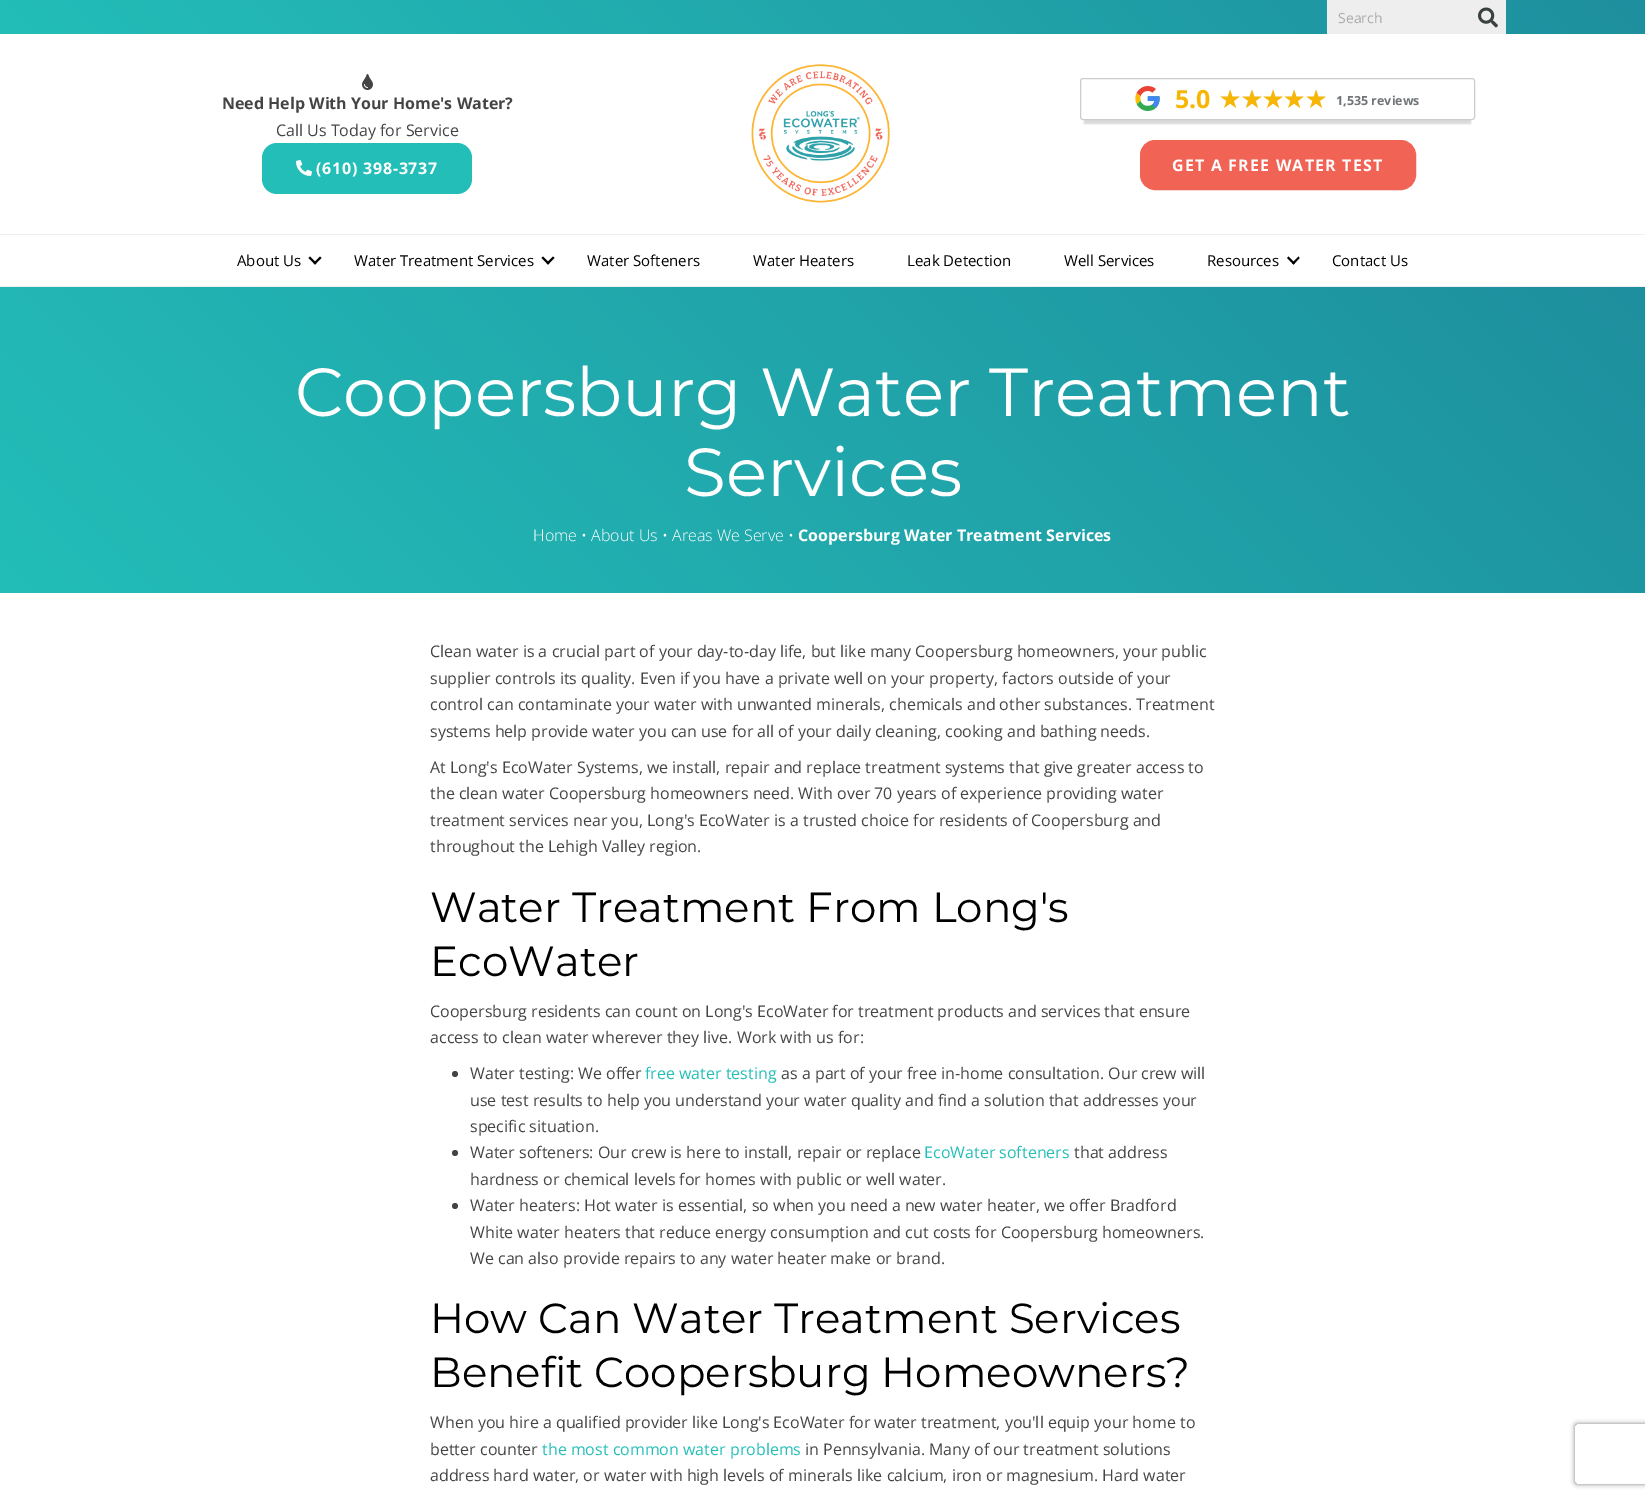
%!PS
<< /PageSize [1645 1498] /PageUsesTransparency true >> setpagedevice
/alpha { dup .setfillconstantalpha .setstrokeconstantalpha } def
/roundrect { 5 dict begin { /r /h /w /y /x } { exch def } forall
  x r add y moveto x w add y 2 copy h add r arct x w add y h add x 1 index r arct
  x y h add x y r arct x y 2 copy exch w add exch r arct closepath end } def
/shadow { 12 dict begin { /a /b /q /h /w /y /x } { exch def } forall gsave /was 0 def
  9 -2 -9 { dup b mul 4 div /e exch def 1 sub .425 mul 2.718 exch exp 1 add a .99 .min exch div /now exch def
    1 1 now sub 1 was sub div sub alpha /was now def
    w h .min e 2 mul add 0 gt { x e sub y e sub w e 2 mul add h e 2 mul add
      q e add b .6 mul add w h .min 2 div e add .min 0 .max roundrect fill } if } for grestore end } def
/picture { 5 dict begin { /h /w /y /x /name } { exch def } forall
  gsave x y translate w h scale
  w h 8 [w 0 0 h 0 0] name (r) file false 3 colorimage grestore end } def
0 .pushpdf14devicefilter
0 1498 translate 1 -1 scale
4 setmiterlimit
1 setgray
0 0 1645 1498 rectfill
gsave newpath 0 0 moveto 1645 0 lineto 1645 34 lineto 0 34 lineto closepath clip newpath
<< /ShadingType 2 /ColorSpace /DeviceRGB /Coords [403 437 1242 -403] /Extend [true true] /Function << /FunctionType 2 /Domain [0 1] /C0 [0.137 0.745 0.722] /C1 [0.118 0.561 0.62] /N 1 >> >> shfill grestore
0.933 setgray
1327 0 179 34 rectfill
/OpenSans-Regular [14 0 0 -14 0 0] selectfont
0.667 setgray
1338 23 moveto (Search) show
(img1.rgb) 1478 7 20 21 picture
(img2.rgb) 362 74 11 16 picture
/OpenSans-Bold [16 0 0 -16 0 0] selectfont
0.267 setgray
222 109 moveto (Need Help With Your Home's Water?) show
/OpenSans-Regular [16 0 0 -16 0 0] selectfont
276 136 moveto (Call Us Today for Service) show
0.137 0.745 0.722 setrgbcolor
262 143 210 51 15 roundrect fill
(img3.rgb) 296 160 16 16 picture
/OpenSans-Bold [16 0 0 -16 0 0] selectfont
1 setgray
316 174 moveto 0.75 0 (\(610\) 398-3737) ashow
(img4.rgb) 751 64 139 139 picture
gsave
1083 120 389 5 rectclip
0 setgray
1084 90 387 34 0 1 0.15 shadow
grestore
0.8 setgray
1080.5 78.5 394 41 2.5 roundrect stroke
(img5.rgb) 1135 86 25 25 picture
/OpenSans-Bold [25 0 0 -25 0 0] selectfont
0.969 0.714 0.012 setrgbcolor
1175 108 moveto (5.0) show
(img11.rgb) 1221 90 19 18 picture
(img6.rgb) 1220 89 20 19 picture
(img12.rgb) 1242 90 19 18 picture
(img7.rgb) 1242 89 20 19 picture
(img13.rgb) 1264 90 19 18 picture
(img8.rgb) 1263 89 20 19 picture
(img14.rgb) 1285 90 19 18 picture
(img9.rgb) 1284 89 20 19 picture
(img15.rgb) 1307 90 18 18 picture
(img10.rgb) 1306 89 20 19 picture
/OpenSans-Bold [12.5 0 0 -12.5 0 0] selectfont
0.439 0.459 0.478 setrgbcolor
1336 105 moveto (1,535 reviews) show
0.941 0.388 0.333 setrgbcolor
1141 141 274 48 14 roundrect gsave fill grestore
2 setlinewidth
stroke
/OpenSans-Bold [16 0 0 -16 0 0] selectfont
1 setgray
1172 171 moveto 1.2 0 (GET A FREE WATER TEST) ashow
0.933 setgray
0 234 1645 1 rectfill
0 286 1645 1 rectfill
/OpenSans-Regular [15 0 0 -15 0 0] selectfont
0 setgray
237 266 moveto (About Us) show
newpath 320 256.5 moveto 321.5 258 lineto 315 264.5 lineto 313.5 263 lineto closepath fill
newpath 310 256.5 moveto 316.5 263 lineto 315 264.5 lineto 308.5 258 lineto closepath fill
354 266 moveto (Water Treatment Services) show
newpath 553 256.5 moveto 554.5 258 lineto 548 264.5 lineto 546.5 263 lineto closepath fill
newpath 543 256.5 moveto 549.5 263 lineto 548 264.5 lineto 541.5 258 lineto closepath fill
587 266 moveto (Water Softeners) show
753 266 moveto (Water Heaters) show
907 266 moveto (Leak Detection) show
1064 266 moveto (Well Services) show
1207 266 moveto (Resources) show
newpath 1298.5 256.5 moveto 1299.5 258 lineto 1293.5 264.5 lineto 1292 263 lineto closepath fill
newpath 1288.5 256.5 moveto 1295 263 lineto 1293.5 264.5 lineto 1287 258 lineto closepath fill
1332 266 moveto (Contact Us) show
gsave newpath 0 287 moveto 1645 287 lineto 1645 593 lineto 0 593 lineto closepath clip newpath
<< /ShadingType 2 /ColorSpace /DeviceRGB /Coords [335 928 1310 -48] /Extend [true true] /Function << /FunctionType 2 /Domain [0 1] /C0 [0.137 0.745 0.722] /C1 [0.118 0.561 0.62] /N 1 >> >> shfill grestore
/Montserrat-Thin [68 0 0 -68 0 0] selectfont
1 setgray
295 416 moveto (Coopersburg Water Treatment) show
684 496 moveto (Services) show
/OpenSans-Light [16 0 0 -16 0 0] selectfont
533 541 moveto (Home • About Us • Areas We Serve •) show
/OpenSans-Bold [16 0 0 -16 0 0] selectfont
798 541 moveto (Coopersburg Water Treatment Services) show
/OpenSans-Regular [16 0 0 -16 0 0] selectfont
0.267 setgray
430 657 moveto (Clean water is a crucial part of your day-to-day life, but like many Coopersburg homeowners, your public) show
430 684 moveto (supplier controls its quality. Even if you have a private well on your property, factors outside of your) show
430 710 moveto (control can contaminate your water with unwanted minerals, chemicals and other substances. Treatment) show
430 737 moveto (systems help provide water you can use for all of your daily cleaning, cooking and bathing needs.) show
430 773 moveto (At Long's EcoWater Systems, we install, repair and replace treatment systems that give greater access to) show
430 799 moveto (the clean water Coopersburg homeowners need. With over 70 years of experience providing water) show
430 826 moveto (treatment services near you, Long's EcoWater is a trusted choice for residents of Coopersburg and) show
430 852 moveto (throughout the Lehigh Valley region.) show
/Montserrat-Thin [42 0 0 -42 0 0] selectfont
0 setgray
430 922 moveto (Water Treatment From Long's) show
430 976 moveto (EcoWater) show
/OpenSans-Regular [16 0 0 -16 0 0] selectfont
0.267 setgray
430 1017 moveto (Coopersburg residents can count on Long's EcoWater for treatment products and services that ensure) show
430 1043 moveto (access to clean water wherever they live. Work with us for:) show
newpath 455 1074 3 0 360 arc closepath fill
470 1079 moveto (Water testing: We offer) show
0.137 0.745 0.722 setrgbcolor
645 1079 moveto (free water testing) show
0.267 setgray
781 1079 moveto (as a part of your free in-home consultation. Our crew will) show
470 1106 moveto (use test results to help you understand your water quality and find a solution that addresses your) show
470 1132 moveto (specific situation.) show
newpath 455 1153 3 0 360 arc closepath fill
470 1158 moveto (Water softeners: Our crew is here to install, repair or replace) show
0.137 0.745 0.722 setrgbcolor
924 1158 moveto (EcoWater softeners) show
0.267 setgray
1074 1158 moveto (that address) show
470 1185 moveto (hardness or chemical levels for homes with public or well water.) show
newpath 455 1206 3 0 360 arc closepath fill
470 1211 moveto (Water heaters: Hot water is essential, so when you need a new water heater, we offer Bradford) show
470 1238 moveto (White water heaters that reduce energy consumption and cut costs for Coopersburg homeowners.) show
470 1264 moveto (We can also provide repairs to any water heater make or brand.) show
/Montserrat-Thin [42 0 0 -42 0 0] selectfont
0 setgray
430 1333 moveto (How Can Water Treatment Services) show
430 1387 moveto (Benefit Coopersburg Homeowners?) show
/OpenSans-Regular [16 0 0 -16 0 0] selectfont
0.267 setgray
430 1428 moveto (When you hire a qualified provider like Long's EcoWater for water treatment, you'll equip your home to) show
430 1455 moveto (better counter) show
0.137 0.745 0.722 setrgbcolor
542 1455 moveto (the most common water problems) show
0.267 setgray
805 1455 moveto (in Pennsylvania. Many of our treatment solutions) show
430 1481 moveto (address hard water, or water with high levels of minerals like calcium, iron or magnesium. Hard water) show
gsave
newpath 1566 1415 moveto 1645 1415 lineto 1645 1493 lineto 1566 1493 lineto closepath 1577 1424 moveto 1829 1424 lineto 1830 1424 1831 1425 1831 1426 curveto 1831 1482 lineto 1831 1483 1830 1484 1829 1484 curveto 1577 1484 lineto 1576 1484 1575 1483 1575 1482 curveto 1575 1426 lineto 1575 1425 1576 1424 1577 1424 curveto closepath eoclip newpath
0.502 setgray
1575 1424 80 60 2 2.5 1 shadow
grestore
.poppdf14devicefilter showpage
